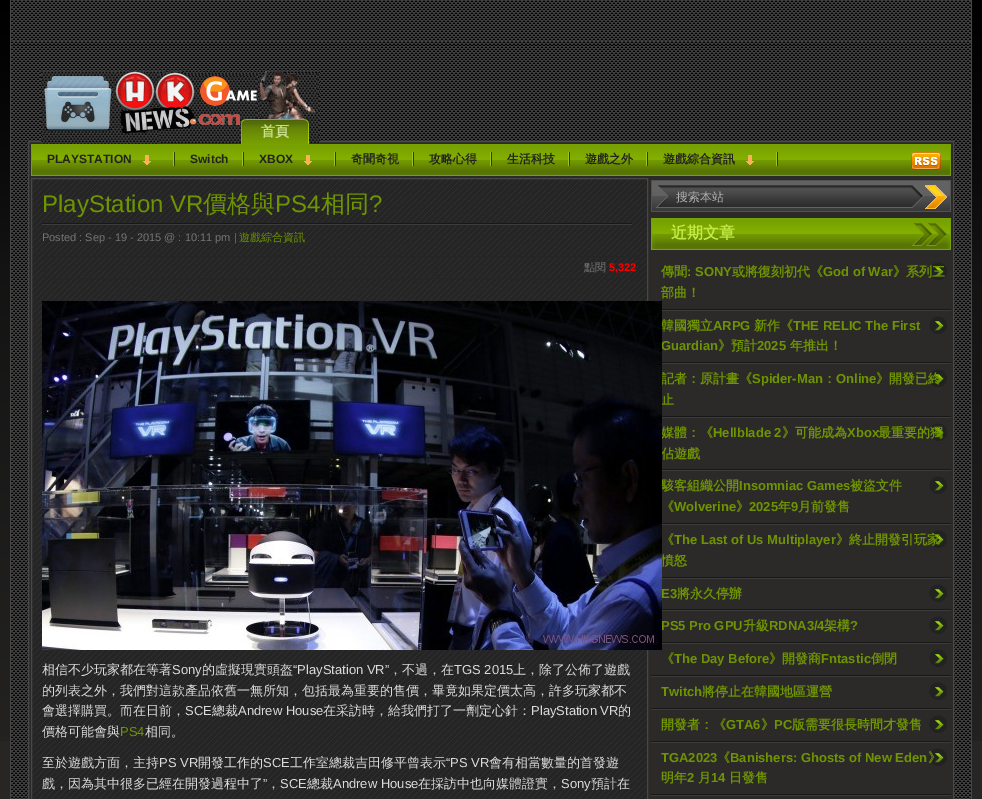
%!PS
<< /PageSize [982 799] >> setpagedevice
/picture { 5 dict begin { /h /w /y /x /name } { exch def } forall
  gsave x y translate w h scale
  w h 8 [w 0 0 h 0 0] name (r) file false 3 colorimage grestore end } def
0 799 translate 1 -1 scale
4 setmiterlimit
0.153 0.149 0.145 setrgbcolor
0 0 982 799 rectfill
(img1.rgb) 0 0 982 741 picture
(img2.rgb) 11 0 960 799 picture
0.271 setgray
971 0 1 799 rectfill
10 0 1 799 rectfill
(img3.rgb) 11 41 960 4 picture
0.173 0.161 0.161 setrgbcolor
newpath 28.5 141.5 moveto 953.5 141.5 lineto 953.5 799.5 lineto 28.5 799.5 lineto closepath gsave fill grestore
0.282 setgray
stroke
(img4.rgb) 41 71 279 73 picture
(img5.rgb) 241 119 63 25 picture
(img6.rgb) 304 119 5 25 picture
/WenQuanYiZenHei-Bold [14 0 0 -14 0 0] selectfont
0.796 0.875 0.561 setrgbcolor
261 136 moveto (首頁) show
(img7.rgb) 32 144 918 32 picture
0.471 0.627 0.004 setrgbcolor
950 144 1 32 rectfill
31 144 1 32 rectfill
(img8.rgb) 173 152 2 14 picture
/LiberationSans-Bold [12 0 0 -12 0 0] selectfont
0.137 0.133 0.122 setrgbcolor
47 163 moveto (PLAYSTATION) show
(img9.rgb) 143 155 8 10 picture
(img8.rgb) 242 152 2 14 picture
190 163 moveto (Switch) show
(img8.rgb) 334 152 2 14 picture
259 163 moveto (XBOX) show
(img9.rgb) 304 155 8 10 picture
(img8.rgb) 412 152 2 14 picture
/WenQuanYiZenHei-Bold [12 0 0 -12 0 0] selectfont
351 163 moveto (奇聞奇視) show
(img8.rgb) 490 152 2 14 picture
429 163 moveto (攻略心得) show
(img8.rgb) 568 152 2 14 picture
507 163 moveto (生活科技) show
(img8.rgb) 646 152 2 14 picture
585 163 moveto (遊戲之外) show
(img8.rgb) 776 152 2 14 picture
663 163 moveto (遊戲綜合資訊) show
(img9.rgb) 746 155 8 10 picture
(img10.rgb) 911 152 30 18 picture
(img11.rgb) 32 179 615 620 picture
0.278 setgray
31.5 178.5 616 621 rectstroke
(img12.rgb) 42 223 590 2 picture
/LiberationSans-Regular [24 0 0 -24 0 0] selectfont
0.431 0.58 0.004 setrgbcolor
42 212 moveto (PlayStation VR) show
/WenQuanYiZenHei-Medium [24 0 0 -24 0 0] selectfont
203 212 moveto (價格與) show
/LiberationSans-Regular [24 0 0 -24 0 0] selectfont
275 212 moveto (PS4) show
/WenQuanYiZenHei-Medium [24 0 0 -24 0 0] selectfont
321 212 moveto (相同) show
/LiberationSans-Regular [24 0 0 -24 0 0] selectfont
369 212 moveto (?) show
/LiberationSans-Regular [11 0 0 -11 0 0] selectfont
0.459 setgray
42 241 moveto (Posted : Sep - 19 - 2015 @ : 10:11 pm |) show
/WenQuanYiZenHei-Medium [11 0 0 -11 0 0] selectfont
0.431 0.58 0.004 setrgbcolor
239 241 moveto (遊戲綜合資訊) show
0.145 setgray
44.5 256.5 389 22 rectstroke
436.5 256.5 203 22 rectstroke
0.459 setgray
584 271 moveto (點閱) show
/LiberationSans-Bold [11 0 0 -11 0 0] selectfont
1 0 0 setrgbcolor
609 271 moveto (5,322) show
/WenQuanYiZenHei-Bold [13 0 0 -13 0 0] selectfont
0.431 0.58 0.004 setrgbcolor
661 330 moveto (韓國獨立) show
/LiberationSans-Bold [13 0 0 -13 0 0] selectfont
661 350 moveto (Guardian) show
/WenQuanYiZenHei-Bold [13 0 0 -13 0 0] selectfont
661 383 moveto (記者：原計畫《) show
661 404 moveto (止) show
661 437 moveto (媒體：《) show
661 458 moveto (佔遊戲) show
661 490 moveto (駭客組織公開) show
661 565 moveto (憤怒) show
/LiberationSans-Bold [13 0 0 -13 0 0] selectfont
661 598 moveto (E3) show
661 630 moveto (PS5 Pro GPU) show
(img13.rgb) 42 301 620 349 picture
/WenQuanYiZenHei-Medium [13 0 0 -13 0 0] selectfont
0.859 setgray
42 674 moveto (相信不少玩家都在等著) show
/LiberationSans-Regular [13 0 0 -13 0 0] selectfont
172 674 moveto (Sony) show
/WenQuanYiZenHei-Medium [13 0 0 -13 0 0] selectfont
202 674 moveto (的虛擬現實頭盔) show
/LiberationSans-Regular [13 0 0 -13 0 0] selectfont
293 674 moveto (“PlayStation VR”) show
/WenQuanYiZenHei-Medium [13 0 0 -13 0 0] selectfont
389 674 moveto (，不過，在) show
/LiberationSans-Regular [13 0 0 -13 0 0] selectfont
454 674 moveto (TGS 2015) show
/WenQuanYiZenHei-Medium [13 0 0 -13 0 0] selectfont
513 674 moveto (上，除了公佈了遊戲) show
42 695 moveto (的列表之外，我們對這款產品依舊一無所知，包括最為重要的售價，畢竟如果定價太高，許多玩家都不) show
42 715 moveto (會選擇購買。而在日前，) show
/LiberationSans-Regular [13 0 0 -13 0 0] selectfont
185 715 moveto (SCE) show
/WenQuanYiZenHei-Medium [13 0 0 -13 0 0] selectfont
212 715 moveto (總裁) show
/LiberationSans-Regular [13 0 0 -13 0 0] selectfont
238 715 moveto (Andrew House) show
/WenQuanYiZenHei-Medium [13 0 0 -13 0 0] selectfont
323 715 moveto (在采訪時，給我們打了一劑定心針：) show
/LiberationSans-Regular [13 0 0 -13 0 0] selectfont
531 715 moveto (PlayStation VR) show
/WenQuanYiZenHei-Medium [13 0 0 -13 0 0] selectfont
618 715 moveto (的) show
42 736 moveto (價格可能會與) show
/LiberationSans-Regular [13 0 0 -13 0 0] selectfont
0.431 0.58 0.004 setrgbcolor
120 736 moveto (PS4) show
/WenQuanYiZenHei-Medium [13 0 0 -13 0 0] selectfont
0.859 setgray
145 736 moveto (相同。) show
42 767 moveto (至於遊戲方面，主持) show
/LiberationSans-Regular [13 0 0 -13 0 0] selectfont
159 767 moveto (PS VR) show
/WenQuanYiZenHei-Medium [13 0 0 -13 0 0] selectfont
198 767 moveto (開發工作的) show
/LiberationSans-Regular [13 0 0 -13 0 0] selectfont
263 767 moveto (SCE) show
/WenQuanYiZenHei-Medium [13 0 0 -13 0 0] selectfont
290 767 moveto (工作室總裁吉田修平曾表示) show
/LiberationSans-Regular [13 0 0 -13 0 0] selectfont
446 767 moveto (“PS VR) show
/WenQuanYiZenHei-Medium [13 0 0 -13 0 0] selectfont
489 767 moveto (會有相當數量的首發遊) show
42 788 moveto (戲，因為其中很多已經在開發過程中了) show
/LiberationSans-Regular [13 0 0 -13 0 0] selectfont
263 788 moveto (”) show
280 788 moveto (SCE) show
/WenQuanYiZenHei-Medium [13 0 0 -13 0 0] selectfont
307 788 moveto (總裁) show
/LiberationSans-Regular [13 0 0 -13 0 0] selectfont
333 788 moveto (Andrew House) show
/WenQuanYiZenHei-Medium [13 0 0 -13 0 0] selectfont
418 788 moveto (在採訪中也向媒體證實，) show
/LiberationSans-Regular [13 0 0 -13 0 0] selectfont
561 788 moveto (Sony) show
/WenQuanYiZenHei-Medium [13 0 0 -13 0 0] selectfont
591 788 moveto (預計在) show
267 788 moveto (，) show
(img14.rgb) 651 180 300 32 picture
/WenQuanYiZenHei-Medium [12 0 0 -12 0 0] selectfont
0.69 setgray
676 201 moveto (搜索本站) show
(img15.rgb) 925 185 22 24 picture
(img16.rgb) 651 218 300 32 picture
/WenQuanYiZenHei-Bold [16 0 0 -16 0 0] selectfont
0.753 0.918 0.278 setrgbcolor
671 238 moveto (近期文章) show
(img17.rgb) 662 309 289 2 picture
(img18.rgb) 929 262 18 18 picture
/WenQuanYiZenHei-Bold [13 0 0 -13 0 0] selectfont
0.431 0.58 0.004 setrgbcolor
661 276 moveto (傳聞) show
/LiberationSans-Bold [13 0 0 -13 0 0] selectfont
687 276 moveto (: SONY) show
/WenQuanYiZenHei-Bold [13 0 0 -13 0 0] selectfont
732 276 moveto (或將復刻初代《) show
/LiberationSans-Bold [13 0 0 -13 0 0] selectfont
823 276 moveto (God of War) show
/WenQuanYiZenHei-Bold [13 0 0 -13 0 0] selectfont
893 276 moveto (》系列三) show
661 297 moveto (部曲！) show
(img17.rgb) 662 362 289 2 picture
(img18.rgb) 929 316 18 18 picture
/LiberationSans-Bold [13 0 0 -13 0 0] selectfont
713 330 moveto (ARPG) show
/WenQuanYiZenHei-Bold [13 0 0 -13 0 0] selectfont
754 330 moveto (新作《) show
/LiberationSans-Bold [13 0 0 -13 0 0] selectfont
793 330 moveto (THE RELIC The First) show
/WenQuanYiZenHei-Bold [13 0 0 -13 0 0] selectfont
718 350 moveto (》預計) show
/LiberationSans-Bold [13 0 0 -13 0 0] selectfont
757 350 moveto (2025) show
/WenQuanYiZenHei-Bold [13 0 0 -13 0 0] selectfont
790 350 moveto (年推出！) show
(img17.rgb) 662 416 289 2 picture
(img18.rgb) 929 369 18 18 picture
/LiberationSans-Bold [13 0 0 -13 0 0] selectfont
752 383 moveto (Spider-Man) show
/WenQuanYiZenHei-Bold [13 0 0 -13 0 0] selectfont
823 383 moveto (：) show
/LiberationSans-Bold [13 0 0 -13 0 0] selectfont
836 383 moveto (Online) show
/WenQuanYiZenHei-Bold [13 0 0 -13 0 0] selectfont
876 383 moveto (》開發已終) show
(img17.rgb) 662 469 289 2 picture
(img18.rgb) 929 423 18 18 picture
/LiberationSans-Bold [13 0 0 -13 0 0] selectfont
713 437 moveto (Hellblade 2) show
/WenQuanYiZenHei-Bold [13 0 0 -13 0 0] selectfont
782 437 moveto (》可能成為) show
/LiberationSans-Bold [13 0 0 -13 0 0] selectfont
847 437 moveto (Xbox) show
/WenQuanYiZenHei-Bold [13 0 0 -13 0 0] selectfont
878 437 moveto (最重要的獨) show
(img17.rgb) 662 523 289 2 picture
(img18.rgb) 929 476 18 18 picture
/LiberationSans-Bold [13 0 0 -13 0 0] selectfont
739 490 moveto (Insomniac Games) show
/WenQuanYiZenHei-Bold [13 0 0 -13 0 0] selectfont
850 490 moveto (被盜文件) show
661 511 moveto (《) show
/LiberationSans-Bold [13 0 0 -13 0 0] selectfont
674 511 moveto (Wolverine) show
/WenQuanYiZenHei-Bold [13 0 0 -13 0 0] selectfont
736 511 moveto (》) show
/LiberationSans-Bold [13 0 0 -13 0 0] selectfont
749 511 moveto (2025) show
/WenQuanYiZenHei-Bold [13 0 0 -13 0 0] selectfont
778 511 moveto (年) show
/LiberationSans-Bold [13 0 0 -13 0 0] selectfont
791 511 moveto (9) show
/WenQuanYiZenHei-Bold [13 0 0 -13 0 0] selectfont
798 511 moveto (月前發售) show
(img17.rgb) 662 577 289 2 picture
(img18.rgb) 929 530 18 18 picture
661 544 moveto (《) show
/LiberationSans-Bold [13 0 0 -13 0 0] selectfont
674 544 moveto (The Last of Us Multiplayer) show
/WenQuanYiZenHei-Bold [13 0 0 -13 0 0] selectfont
836 544 moveto (》終止開發引玩家) show
(img17.rgb) 662 609 289 2 picture
(img18.rgb) 929 584 18 18 picture
677 598 moveto (將永久停辦) show
(img17.rgb) 662 642 289 2 picture
(img18.rgb) 929 616 18 18 picture
743 630 moveto (升級) show
/LiberationSans-Bold [13 0 0 -13 0 0] selectfont
769 630 moveto (RDNA3/4) show
/WenQuanYiZenHei-Bold [13 0 0 -13 0 0] selectfont
824 630 moveto (架構) show
/LiberationSans-Bold [13 0 0 -13 0 0] selectfont
850 630 moveto (?) show
(img19.rgb) 651 675 300 2 picture
(img18.rgb) 929 649 18 18 picture
/WenQuanYiZenHei-Bold [13 0 0 -13 0 0] selectfont
661 663 moveto (《) show
/LiberationSans-Bold [13 0 0 -13 0 0] selectfont
674 663 moveto (The Day Before) show
/WenQuanYiZenHei-Bold [13 0 0 -13 0 0] selectfont
769 663 moveto (》開發商) show
/LiberationSans-Bold [13 0 0 -13 0 0] selectfont
821 663 moveto (Fntastic) show
/WenQuanYiZenHei-Bold [13 0 0 -13 0 0] selectfont
871 663 moveto (倒閉) show
(img19.rgb) 651 708 300 2 picture
(img18.rgb) 929 682 18 18 picture
/LiberationSans-Bold [13 0 0 -13 0 0] selectfont
661 696 moveto (Twitch) show
/WenQuanYiZenHei-Bold [13 0 0 -13 0 0] selectfont
702 696 moveto (將停止在韓國地區運營) show
(img19.rgb) 651 741 300 2 picture
(img18.rgb) 929 715 18 18 picture
661 729 moveto (開發者：《) show
/LiberationSans-Bold [13 0 0 -13 0 0] selectfont
726 729 moveto (GTA6) show
/WenQuanYiZenHei-Bold [13 0 0 -13 0 0] selectfont
761 729 moveto (》) show
/LiberationSans-Bold [13 0 0 -13 0 0] selectfont
774 729 moveto (PC) show
/WenQuanYiZenHei-Bold [13 0 0 -13 0 0] selectfont
792 729 moveto (版需要很長時間才發售) show
(img19.rgb) 651 794 300 2 picture
(img18.rgb) 929 748 18 18 picture
/LiberationSans-Bold [13 0 0 -13 0 0] selectfont
661 762 moveto (TGA2023) show
/WenQuanYiZenHei-Bold [13 0 0 -13 0 0] selectfont
717 762 moveto (《) show
/LiberationSans-Bold [13 0 0 -13 0 0] selectfont
730 762 moveto (Banishers: Ghosts of New Eden) show
/WenQuanYiZenHei-Bold [13 0 0 -13 0 0] selectfont
928 762 moveto (》) show
661 782 moveto (明年) show
/LiberationSans-Bold [13 0 0 -13 0 0] selectfont
687 782 moveto (2) show
/WenQuanYiZenHei-Bold [13 0 0 -13 0 0] selectfont
698 782 moveto (月) show
/LiberationSans-Bold [13 0 0 -13 0 0] selectfont
711 782 moveto (14) show
/WenQuanYiZenHei-Bold [13 0 0 -13 0 0] selectfont
729 782 moveto (日發售) show
showpage
